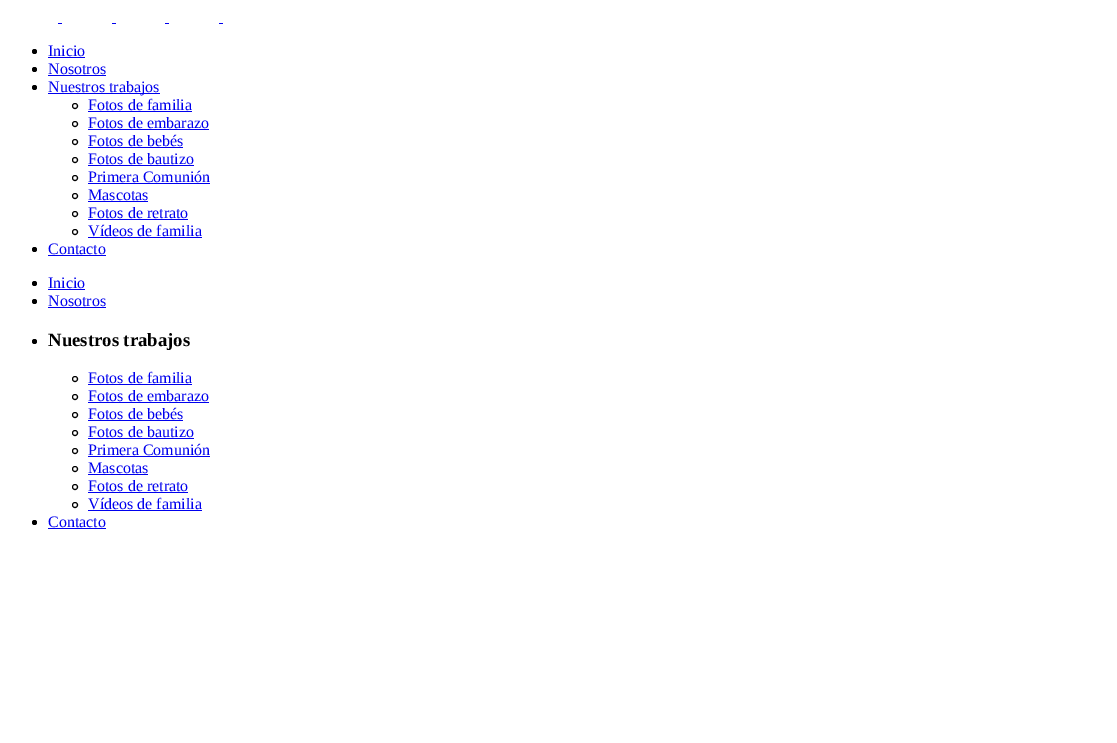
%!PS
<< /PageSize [1117 743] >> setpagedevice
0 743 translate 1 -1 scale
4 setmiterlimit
1 setgray
0 0 1117 743 rectfill
0 0 0.933 setrgbcolor
58 23 4 1 rectfill
112 23 4 1 rectfill
165 23 4 1 rectfill
219 23 4 1 rectfill
0 setgray
newpath 34.5 51.5 2.5 0 360 arc closepath fill
/LiberationSerif-Regular [16 0 0 -16 0 0] selectfont
0 0 0.933 setrgbcolor
48 56 moveto (Inicio) show
48 57 37 1 rectfill
0 setgray
newpath 34.5 69.5 2.5 0 360 arc closepath fill
0 0 0.933 setrgbcolor
48 74 moveto (Nosotros) show
48 75 58 1 rectfill
0 setgray
newpath 34.5 87.5 2.5 0 360 arc closepath fill
0 0 0.933 setrgbcolor
48 93 112 1 rectfill
48 92 moveto (Nuestros trabajos) show
0 setgray
newpath 75 106 2.5 0 360 arc closepath stroke
0 0 0.933 setrgbcolor
88 110 moveto (Fotos de familia) show
88 111 104 1 rectfill
0 setgray
newpath 75 124 2.5 0 360 arc closepath stroke
0 0 0.933 setrgbcolor
88 128 moveto (Fotos de embarazo) show
88 129 121 1 rectfill
0 setgray
newpath 75 142 2.5 0 360 arc closepath stroke
0 0 0.933 setrgbcolor
88 146 moveto (Fotos de bebés) show
88 147 95 1 rectfill
0 setgray
newpath 75 160 2.5 0 360 arc closepath stroke
0 0 0.933 setrgbcolor
88 164 moveto (Fotos de bautizo) show
88 165 106 1 rectfill
0 setgray
newpath 75 178 2.5 0 360 arc closepath stroke
0 0 0.933 setrgbcolor
88 182 moveto (Primera Comunión) show
88 183 122 1 rectfill
0 setgray
newpath 75 196 2.5 0 360 arc closepath stroke
0 0 0.933 setrgbcolor
88 200 moveto (Mascotas) show
88 201 60 1 rectfill
0 setgray
newpath 75 214 2.5 0 360 arc closepath stroke
0 0 0.933 setrgbcolor
88 218 moveto (Fotos de retrato) show
88 219 100 1 rectfill
0 setgray
newpath 75 232 2.5 0 360 arc closepath stroke
0 0 0.933 setrgbcolor
88 236 moveto (Vídeos de familia) show
88 237 114 1 rectfill
0 setgray
newpath 34.5 249.5 2.5 0 360 arc closepath fill
0 0 0.933 setrgbcolor
48 254 moveto (Contacto) show
48 255 58 1 rectfill
0 setgray
newpath 34.5 283.5 2.5 0 360 arc closepath fill
0 0 0.933 setrgbcolor
48 288 moveto (Inicio) show
48 289 37 1 rectfill
0 setgray
newpath 34.5 301.5 2.5 0 360 arc closepath fill
0 0 0.933 setrgbcolor
48 306 moveto (Nosotros) show
48 307 58 1 rectfill
0 setgray
newpath 34.5 341.5 2.5 0 360 arc closepath fill
/LiberationSerif-Bold [18.75 0 0 -18.75 0 0] selectfont
48 346 moveto (Nuestros trabajos) show
newpath 75 379 2.5 0 360 arc closepath stroke
/LiberationSerif-Regular [16 0 0 -16 0 0] selectfont
0 0 0.933 setrgbcolor
88 383 moveto (Fotos de familia) show
88 384 104 1 rectfill
0 setgray
newpath 75 397 2.5 0 360 arc closepath stroke
0 0 0.933 setrgbcolor
88 401 moveto (Fotos de embarazo) show
88 402 121 1 rectfill
0 setgray
newpath 75 415 2.5 0 360 arc closepath stroke
0 0 0.933 setrgbcolor
88 419 moveto (Fotos de bebés) show
88 420 95 1 rectfill
0 setgray
newpath 75 433 2.5 0 360 arc closepath stroke
0 0 0.933 setrgbcolor
88 437 moveto (Fotos de bautizo) show
88 438 106 1 rectfill
0 setgray
newpath 75 451 2.5 0 360 arc closepath stroke
0 0 0.933 setrgbcolor
88 455 moveto (Primera Comunión) show
88 456 122 1 rectfill
0 setgray
newpath 75 469 2.5 0 360 arc closepath stroke
0 0 0.933 setrgbcolor
88 473 moveto (Mascotas) show
88 474 60 1 rectfill
0 setgray
newpath 75 487 2.5 0 360 arc closepath stroke
0 0 0.933 setrgbcolor
88 491 moveto (Fotos de retrato) show
88 492 100 1 rectfill
0 setgray
newpath 75 505 2.5 0 360 arc closepath stroke
0 0 0.933 setrgbcolor
88 509 moveto (Vídeos de familia) show
88 510 114 1 rectfill
0 setgray
newpath 34.5 522.5 2.5 0 360 arc closepath fill
0 0 0.933 setrgbcolor
48 527 moveto (Contacto) show
48 528 58 1 rectfill
showpage
